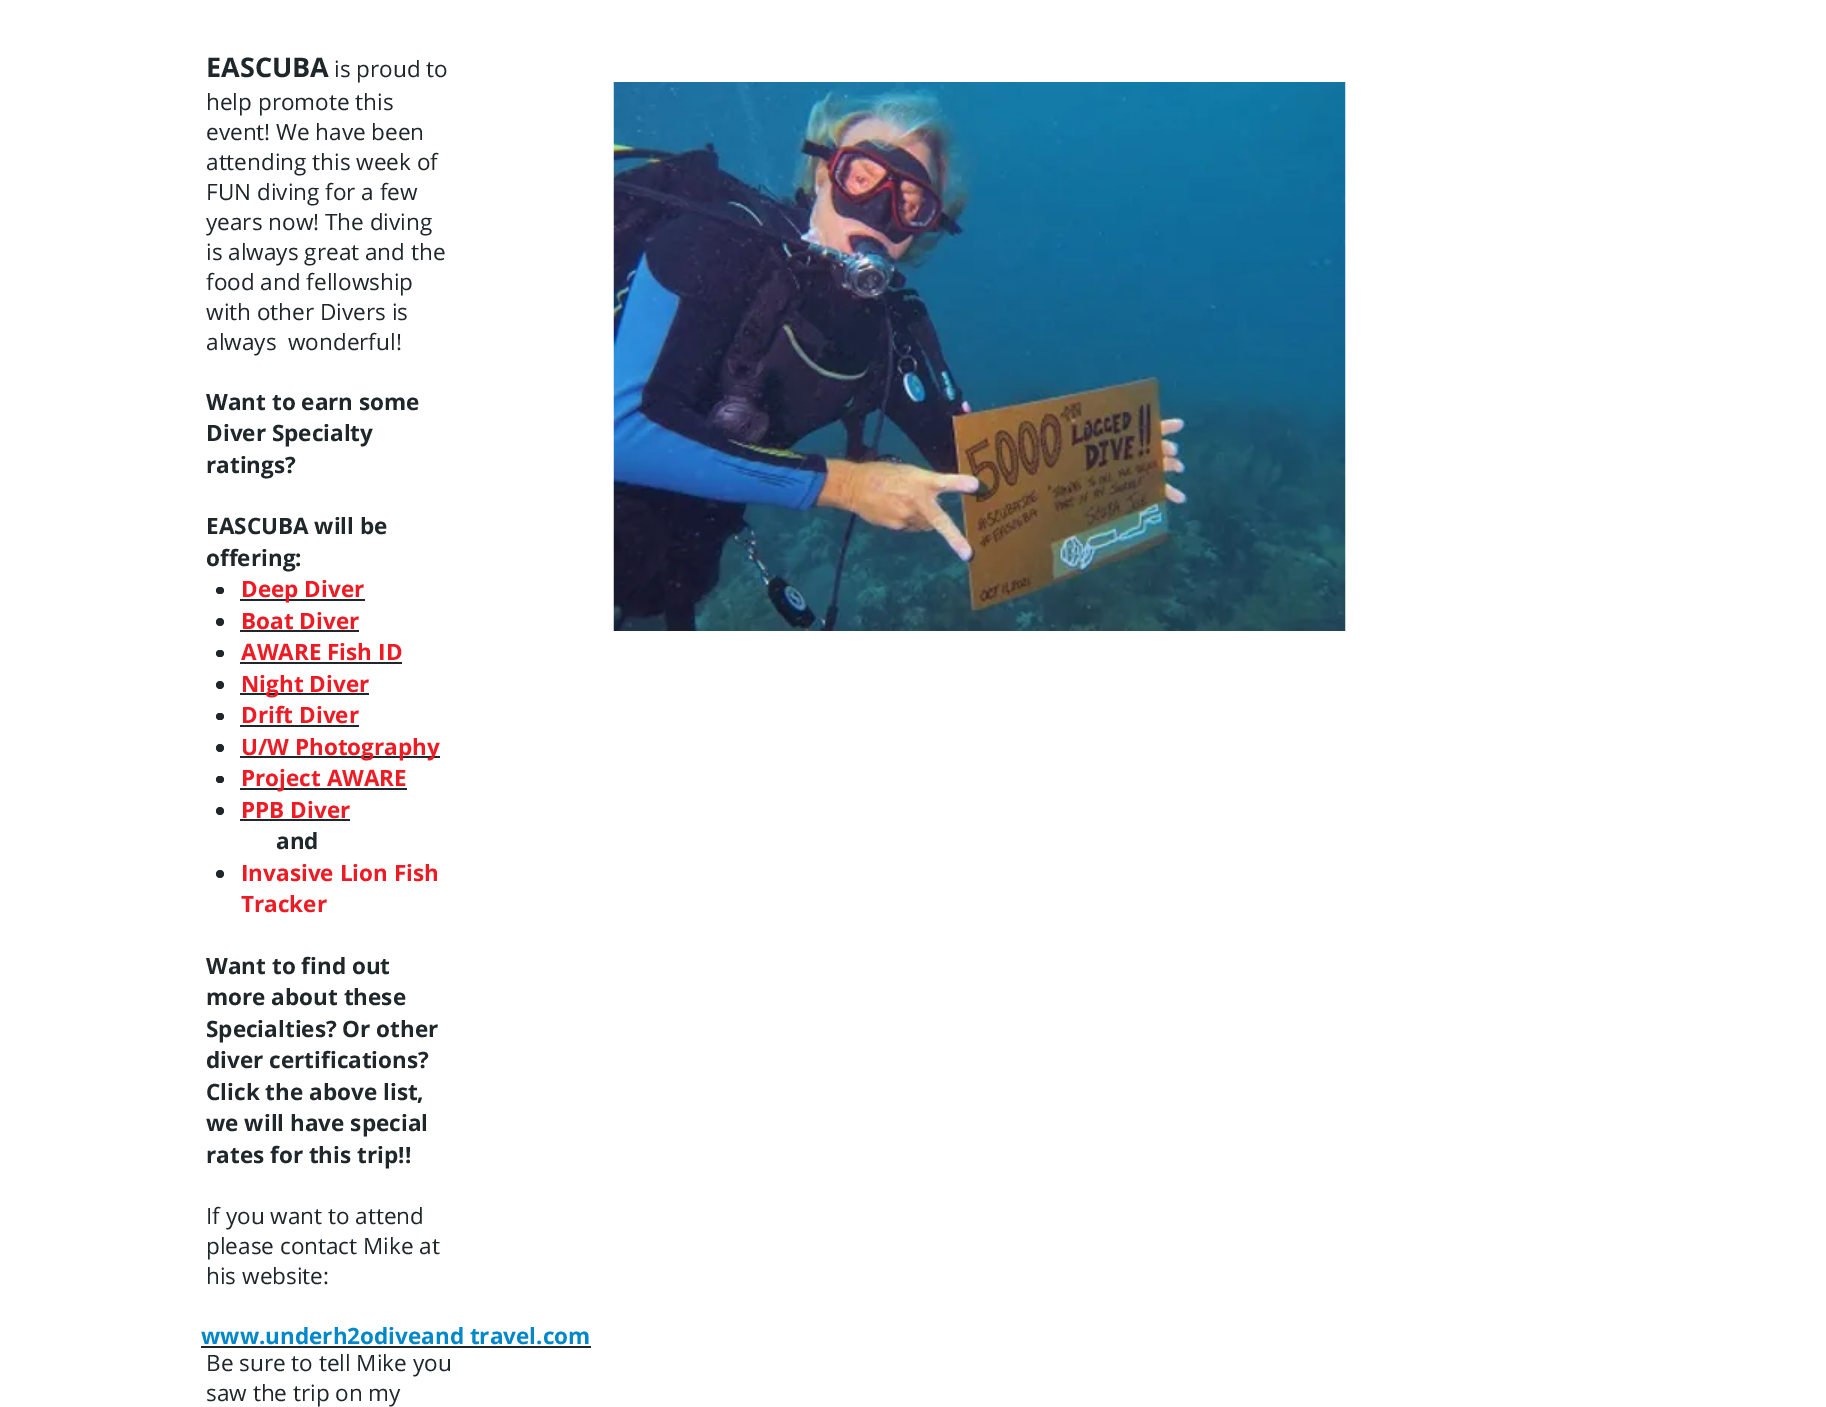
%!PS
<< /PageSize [1826 1407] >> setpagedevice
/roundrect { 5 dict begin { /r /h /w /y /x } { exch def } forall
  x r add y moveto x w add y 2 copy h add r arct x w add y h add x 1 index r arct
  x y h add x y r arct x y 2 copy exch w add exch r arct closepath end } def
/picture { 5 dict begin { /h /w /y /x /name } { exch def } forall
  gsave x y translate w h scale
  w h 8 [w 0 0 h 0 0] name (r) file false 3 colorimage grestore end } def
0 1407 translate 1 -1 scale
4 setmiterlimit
1 setgray
0 0 1826 1407 rectfill
/OpenSans-Bold [27 0 0 -27 0 0] selectfont
0.122 0.153 0.169 setrgbcolor
206 77 moveto (EASCUBA) show
/OpenSans-Regular [22.5 0 0 -22.5 0 0] selectfont
334 77 moveto (is proud to) show
206 110 moveto (help promote this) show
206 140 moveto (event! We have been) show
206 170 moveto (attending this week of) show
206 200 moveto (FUN diving for a few) show
206 230 moveto (years now! The diving) show
206 260 moveto (is always great and the) show
206 290 moveto (food and fellowship) show
206 320 moveto (with other Divers is) show
206 350 moveto (always  wonderful!) show
/OpenSans-Bold [22.5 0 0 -22.5 0 0] selectfont
206 410 moveto (Want to earn some) show
206 441 moveto (Diver Specialty) show
206 473 moveto (ratings?) show
206 534 moveto (EASCUBA will be) show
206 566 moveto (offering:) show
216 587 8 7 3.5 roundrect fill
240 599 125 2 rectfill
0.929 0.11 0.141 setrgbcolor
241 597 moveto (Deep Diver) show
0.122 0.153 0.169 setrgbcolor
newpath 220 622 4 0 360 arc closepath fill
0.929 0.11 0.141 setrgbcolor
241 629 moveto (Boat Diver) show
0.122 0.153 0.169 setrgbcolor
240 630 119 2 rectfill
216 650 8 7 3.5 roundrect fill
0.929 0.11 0.141 setrgbcolor
241 660 moveto (AWARE Fish ID) show
0.122 0.153 0.169 setrgbcolor
240 662 162 2 rectfill
newpath 220 685 4 0 360 arc closepath fill
240 693 129 2 rectfill
0.929 0.11 0.141 setrgbcolor
241 692 moveto (Night Diver) show
0.122 0.153 0.169 setrgbcolor
216 713 8 7 3.5 roundrect fill
0.929 0.11 0.141 setrgbcolor
241 723 moveto (Drift Diver) show
0.122 0.153 0.169 setrgbcolor
240 725 119 2 rectfill
newpath 220 748 4 0 360 arc closepath fill
240 756 200 2 rectfill
0.929 0.11 0.141 setrgbcolor
241 755 moveto (U/W Photography) show
0.122 0.153 0.169 setrgbcolor
216 776 8 7 3.5 roundrect fill
240 788 167 2 rectfill
0.929 0.11 0.141 setrgbcolor
241 786 moveto (Project AWARE) show
0.122 0.153 0.169 setrgbcolor
newpath 220 811 4 0 360 arc closepath fill
0.929 0.11 0.141 setrgbcolor
241 818 moveto (PPB Diver) show
0.122 0.153 0.169 setrgbcolor
240 819 110 2 rectfill
276 849 moveto (and) show
newpath 220 874 4 0 360 arc closepath fill
0.929 0.11 0.141 setrgbcolor
241 881 moveto (Invasive Lion Fish) show
241 912 moveto (Tracker) show
0.122 0.153 0.169 setrgbcolor
206 974 moveto (Want to find out) show
206 1005 moveto (more about these) show
206 1037 moveto (Specialties? Or other) show
206 1068 moveto (diver certifications?) show
206 1100 moveto (Click the above list,) show
206 1131 moveto (we will have special) show
206 1163 moveto (rates for this trip!!) show
/OpenSans-Regular [22.5 0 0 -22.5 0 0] selectfont
206 1224 moveto (If you want to attend) show
206 1254 moveto (please contact Mike at) show
206 1284 moveto (his website:) show
206 1371 moveto (Be sure to tell Mike you) show
206 1401 moveto (saw the trip on my) show
(img1.rgb) 613 82 733 549 picture
/OpenSans-Bold [22.5 0 0 -22.5 0 0] selectfont
0 0.533 0.796 setrgbcolor
201 1344 moveto (www.underh2odiveand travel.com) show
0.122 0.153 0.169 setrgbcolor
201 1346 390 2 rectfill
showpage
